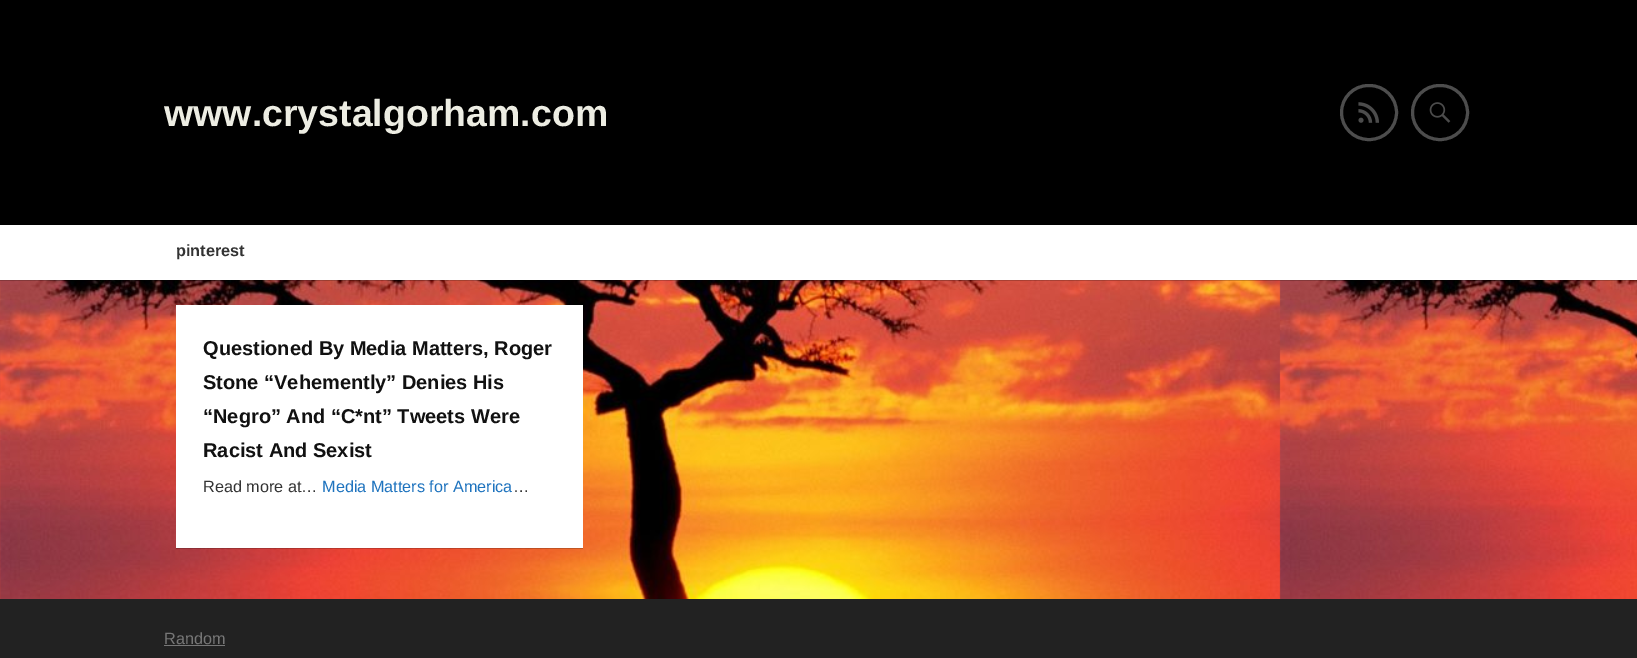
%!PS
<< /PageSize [1637 658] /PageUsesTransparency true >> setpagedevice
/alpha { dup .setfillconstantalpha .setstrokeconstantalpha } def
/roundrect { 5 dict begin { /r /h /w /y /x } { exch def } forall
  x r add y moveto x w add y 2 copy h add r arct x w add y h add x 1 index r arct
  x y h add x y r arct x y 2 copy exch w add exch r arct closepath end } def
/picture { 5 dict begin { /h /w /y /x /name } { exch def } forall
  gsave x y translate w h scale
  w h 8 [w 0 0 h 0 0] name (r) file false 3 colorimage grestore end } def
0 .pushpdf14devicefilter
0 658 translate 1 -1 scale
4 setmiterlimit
1 setgray
0 0 1637 658 rectfill
(img1.rgb) 0 280 1637 319 picture
0 setgray
0 0 1637 225 rectfill
/LiberationSans-Bold [37.5 0 0 -37.5 0 0] selectfont
0.929 0.929 0.89 setrgbcolor
164 126 moveto (www.crystalgorham.com) show
0.302 setgray
3 setlinewidth
1341.5 85.5 55 54 27 roundrect stroke
(img2.rgb) 1358 102 21 21 picture
1412.5 85.5 55 54 27 roundrect stroke
(img3.rgb) 1429 102 22 21 picture
0.2 alpha
0 setgray
newpath 0 280 moveto 0 281 lineto 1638 281 lineto 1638 226 lineto 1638 280 lineto closepath fill
/LiberationSans-Bold [16.25 0 0 -16.25 0 0] selectfont
1 alpha
0.2 setgray
176 256 moveto (pinterest) show
0.2 alpha
0 setgray
newpath 176 306 moveto 176 549 lineto 583 549 lineto 583 306 lineto 582 306 lineto 582 548 lineto 176 548 lineto closepath fill
1 alpha
1 setgray
176 305 407 243 rectfill
/LiberationSans-Bold [20 0 0 -20 0 0] selectfont
0.067 setgray
203 355 moveto (Questioned By Media Matters, Roger) show
203 389 moveto (Stone “Vehemently” Denies His) show
203 423 moveto (“Negro” And “C*nt” Tweets Were) show
203 457 moveto (Racist And Sexist) show
/LiberationSans-Regular [16.25 0 0 -16.25 0 0] selectfont
0.2 setgray
203 492 moveto (Read more at…) show
0.118 0.451 0.745 setrgbcolor
322 492 moveto (Media Matters for America) show
0.2 setgray
513 492 moveto (…) show
0.133 setgray
0 599 1637 59 rectfill
0.467 setgray
164 644 moveto (Random) show
164 645 61 1 rectfill
.poppdf14devicefilter showpage
